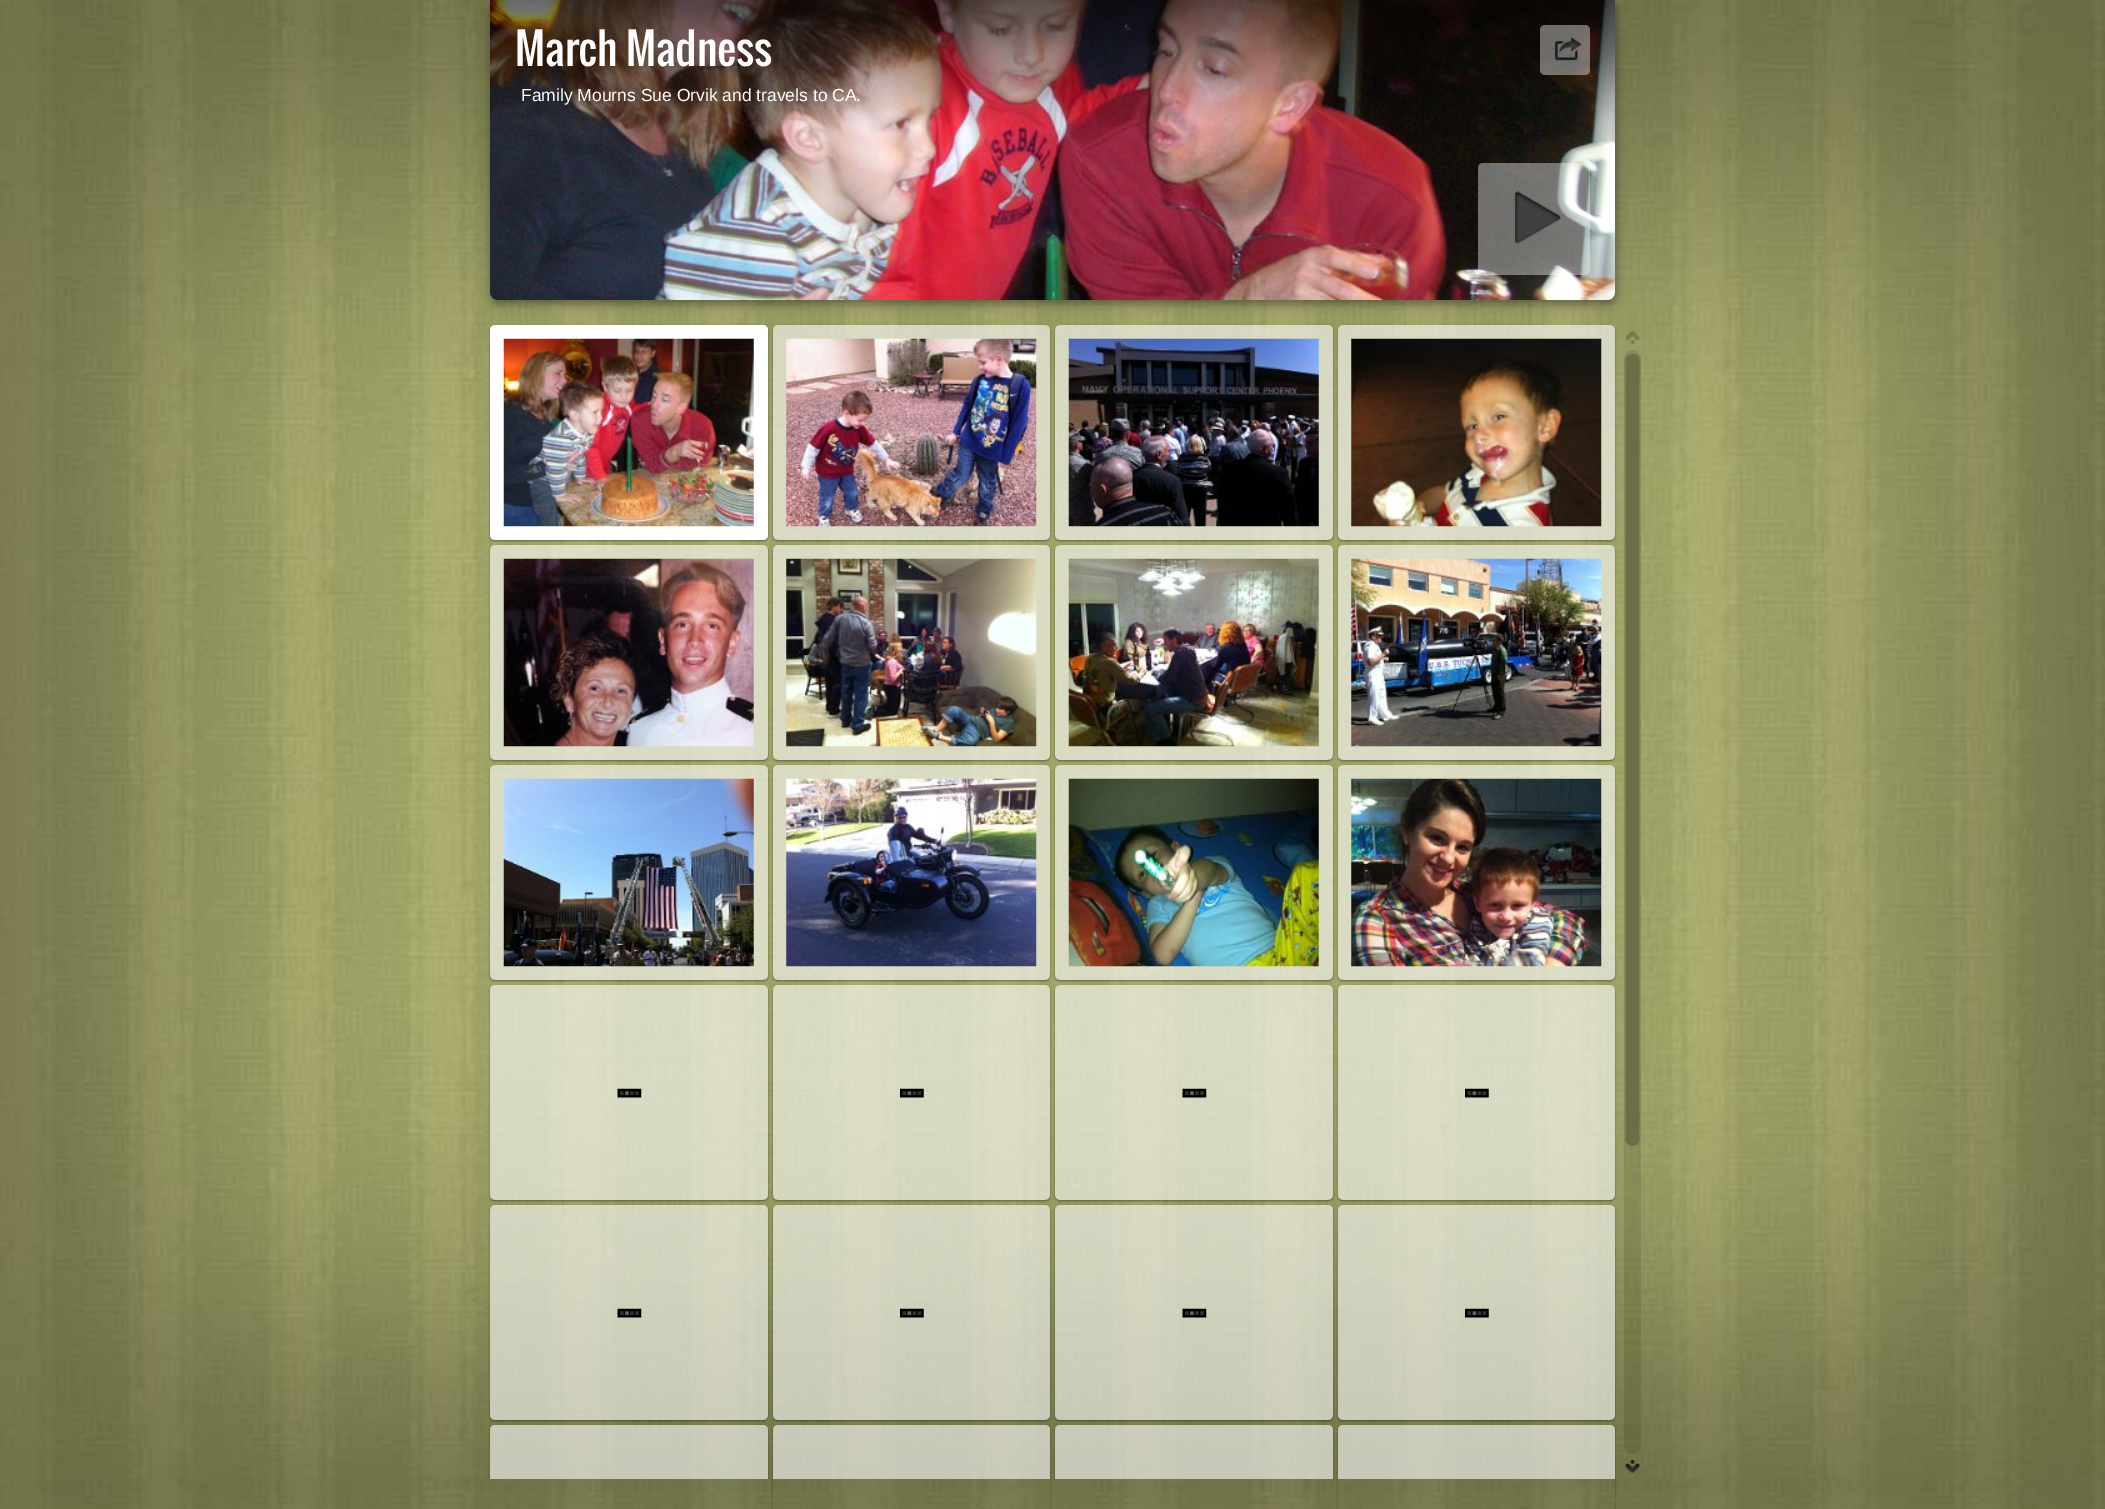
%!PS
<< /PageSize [2105 1509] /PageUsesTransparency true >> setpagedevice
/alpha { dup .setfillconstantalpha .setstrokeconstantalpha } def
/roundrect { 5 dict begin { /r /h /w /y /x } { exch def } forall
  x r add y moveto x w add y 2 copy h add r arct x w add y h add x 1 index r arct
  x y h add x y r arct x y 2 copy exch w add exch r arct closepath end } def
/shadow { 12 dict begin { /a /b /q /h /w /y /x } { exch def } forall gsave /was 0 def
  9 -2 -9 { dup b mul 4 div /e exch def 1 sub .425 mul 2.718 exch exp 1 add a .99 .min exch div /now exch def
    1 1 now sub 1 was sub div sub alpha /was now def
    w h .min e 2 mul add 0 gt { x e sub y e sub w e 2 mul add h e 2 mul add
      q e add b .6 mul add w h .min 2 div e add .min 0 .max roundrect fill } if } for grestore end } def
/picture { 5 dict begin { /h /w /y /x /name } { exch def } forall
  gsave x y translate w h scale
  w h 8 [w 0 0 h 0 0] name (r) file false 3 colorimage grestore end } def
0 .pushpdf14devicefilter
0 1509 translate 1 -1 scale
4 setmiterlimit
0.42 0.431 0.275 setrgbcolor
0 0 2105 1509 rectfill
(img1.rgb) 0 0 2105 1479 picture
0 setgray
491 4 1125 300 8 5 0.4 shadow
(img2.rgb) 490 0 1125 300 picture
/Oswald-Regular [42 0 0 -42 0 0] selectfont
1 setgray
515 66 moveto (March Madness) show
/LiberationSans-Regular [17.5 0 0 -17.5 0 0] selectfont
521 101 moveto (Family Mourns Sue Orvik and travels to CA.) show
0.4 alpha
1540 25 50 50 5 roundrect fill
1 alpha
(img3.rgb) 1554 37 28 24 picture
0.4 alpha
1478 163 112 112 5 roundrect fill
1 alpha
(img4.rgb) 1514 191 47 53 picture
0 setgray
490 326 278 215 5 1 0.4 shadow
1 setgray
490 325 278 215 5 roundrect fill
(img5.rgb) 503 338 251 189 picture
gsave
newpath 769 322 moveto 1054 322 lineto 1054 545 lineto 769 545 lineto closepath 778 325 moveto 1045 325 lineto 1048 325 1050 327 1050 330 curveto 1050 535 lineto 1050 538 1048 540 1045 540 curveto 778 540 lineto 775 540 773 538 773 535 curveto 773 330 lineto 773 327 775 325 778 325 curveto closepath eoclip newpath
0 setgray
773 326 277 215 5 1 0.4 shadow
grestore
0.6 alpha
773 325 277 215 5 roundrect fill
1 alpha
(img6.rgb) 786 338 251 189 picture
gsave
newpath 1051 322 moveto 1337 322 lineto 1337 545 lineto 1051 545 lineto closepath 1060 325 moveto 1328 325 lineto 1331 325 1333 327 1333 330 curveto 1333 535 lineto 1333 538 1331 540 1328 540 curveto 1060 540 lineto 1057 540 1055 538 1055 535 curveto 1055 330 lineto 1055 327 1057 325 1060 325 curveto closepath eoclip newpath
0 setgray
1055 326 278 215 5 1 0.4 shadow
grestore
0.6 alpha
1055 325 278 215 5 roundrect fill
1 alpha
(img7.rgb) 1068 338 251 189 picture
gsave
newpath 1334 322 moveto 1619 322 lineto 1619 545 lineto 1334 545 lineto closepath 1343 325 moveto 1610 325 lineto 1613 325 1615 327 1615 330 curveto 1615 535 lineto 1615 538 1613 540 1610 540 curveto 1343 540 lineto 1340 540 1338 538 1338 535 curveto 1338 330 lineto 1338 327 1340 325 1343 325 curveto closepath eoclip newpath
0 setgray
1338 326 277 215 5 1 0.4 shadow
grestore
0.6 alpha
1338 325 277 215 5 roundrect fill
1 alpha
(img8.rgb) 1351 338 251 189 picture
gsave
newpath 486 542 moveto 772 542 lineto 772 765 lineto 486 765 lineto closepath 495 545 moveto 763 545 lineto 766 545 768 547 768 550 curveto 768 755 lineto 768 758 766 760 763 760 curveto 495 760 lineto 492 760 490 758 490 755 curveto 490 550 lineto 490 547 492 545 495 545 curveto closepath eoclip newpath
0 setgray
490 546 278 215 5 1 0.4 shadow
grestore
0.6 alpha
490 545 278 215 5 roundrect fill
1 alpha
(img9.rgb) 503 558 251 189 picture
gsave
newpath 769 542 moveto 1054 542 lineto 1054 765 lineto 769 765 lineto closepath 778 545 moveto 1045 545 lineto 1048 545 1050 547 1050 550 curveto 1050 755 lineto 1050 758 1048 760 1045 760 curveto 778 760 lineto 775 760 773 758 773 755 curveto 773 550 lineto 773 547 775 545 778 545 curveto closepath eoclip newpath
0 setgray
773 546 277 215 5 1 0.4 shadow
grestore
0.6 alpha
773 545 277 215 5 roundrect fill
1 alpha
(img10.rgb) 786 558 251 189 picture
gsave
newpath 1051 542 moveto 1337 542 lineto 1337 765 lineto 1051 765 lineto closepath 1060 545 moveto 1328 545 lineto 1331 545 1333 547 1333 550 curveto 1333 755 lineto 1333 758 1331 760 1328 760 curveto 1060 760 lineto 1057 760 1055 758 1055 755 curveto 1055 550 lineto 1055 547 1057 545 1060 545 curveto closepath eoclip newpath
0 setgray
1055 546 278 215 5 1 0.4 shadow
grestore
0.6 alpha
1055 545 278 215 5 roundrect fill
1 alpha
(img11.rgb) 1068 558 251 189 picture
gsave
newpath 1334 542 moveto 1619 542 lineto 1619 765 lineto 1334 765 lineto closepath 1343 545 moveto 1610 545 lineto 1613 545 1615 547 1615 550 curveto 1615 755 lineto 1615 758 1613 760 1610 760 curveto 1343 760 lineto 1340 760 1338 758 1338 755 curveto 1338 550 lineto 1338 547 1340 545 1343 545 curveto closepath eoclip newpath
0 setgray
1338 546 277 215 5 1 0.4 shadow
grestore
0.6 alpha
1338 545 277 215 5 roundrect fill
1 alpha
(img12.rgb) 1351 558 251 189 picture
gsave
newpath 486 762 moveto 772 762 lineto 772 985 lineto 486 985 lineto closepath 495 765 moveto 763 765 lineto 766 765 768 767 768 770 curveto 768 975 lineto 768 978 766 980 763 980 curveto 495 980 lineto 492 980 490 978 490 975 curveto 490 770 lineto 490 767 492 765 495 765 curveto closepath eoclip newpath
0 setgray
490 766 278 215 5 1 0.4 shadow
grestore
0.6 alpha
490 765 278 215 5 roundrect fill
1 alpha
(img13.rgb) 503 778 251 189 picture
gsave
newpath 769 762 moveto 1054 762 lineto 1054 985 lineto 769 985 lineto closepath 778 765 moveto 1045 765 lineto 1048 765 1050 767 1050 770 curveto 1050 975 lineto 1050 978 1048 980 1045 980 curveto 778 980 lineto 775 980 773 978 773 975 curveto 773 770 lineto 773 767 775 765 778 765 curveto closepath eoclip newpath
0 setgray
773 766 277 215 5 1 0.4 shadow
grestore
0.6 alpha
773 765 277 215 5 roundrect fill
1 alpha
(img14.rgb) 786 778 251 189 picture
gsave
newpath 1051 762 moveto 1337 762 lineto 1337 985 lineto 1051 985 lineto closepath 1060 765 moveto 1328 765 lineto 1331 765 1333 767 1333 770 curveto 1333 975 lineto 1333 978 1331 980 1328 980 curveto 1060 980 lineto 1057 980 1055 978 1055 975 curveto 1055 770 lineto 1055 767 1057 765 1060 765 curveto closepath eoclip newpath
0 setgray
1055 766 278 215 5 1 0.4 shadow
grestore
0.6 alpha
1055 765 278 215 5 roundrect fill
1 alpha
(img15.rgb) 1068 778 251 189 picture
gsave
newpath 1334 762 moveto 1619 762 lineto 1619 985 lineto 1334 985 lineto closepath 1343 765 moveto 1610 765 lineto 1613 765 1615 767 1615 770 curveto 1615 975 lineto 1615 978 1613 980 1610 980 curveto 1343 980 lineto 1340 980 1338 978 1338 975 curveto 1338 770 lineto 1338 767 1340 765 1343 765 curveto closepath eoclip newpath
0 setgray
1338 766 277 215 5 1 0.4 shadow
grestore
0.6 alpha
1338 765 277 215 5 roundrect fill
1 alpha
(img16.rgb) 1351 778 251 189 picture
gsave
newpath 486 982 moveto 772 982 lineto 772 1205 lineto 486 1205 lineto closepath 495 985 moveto 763 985 lineto 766 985 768 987 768 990 curveto 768 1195 lineto 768 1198 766 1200 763 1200 curveto 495 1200 lineto 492 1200 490 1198 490 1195 curveto 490 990 lineto 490 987 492 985 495 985 curveto closepath eoclip newpath
0 setgray
490 986 278 215 5 1 0.4 shadow
grestore
0.6 alpha
490 985 278 215 5 roundrect fill
1 alpha
(img17.rgb) 617 1088 25 10 picture
gsave
newpath 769 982 moveto 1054 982 lineto 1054 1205 lineto 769 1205 lineto closepath 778 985 moveto 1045 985 lineto 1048 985 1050 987 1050 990 curveto 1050 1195 lineto 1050 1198 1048 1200 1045 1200 curveto 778 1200 lineto 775 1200 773 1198 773 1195 curveto 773 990 lineto 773 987 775 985 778 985 curveto closepath eoclip newpath
0 setgray
773 986 277 215 5 1 0.4 shadow
grestore
0.6 alpha
773 985 277 215 5 roundrect fill
1 alpha
(img18.rgb) 900 1088 24 10 picture
gsave
newpath 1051 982 moveto 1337 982 lineto 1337 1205 lineto 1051 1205 lineto closepath 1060 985 moveto 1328 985 lineto 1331 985 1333 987 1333 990 curveto 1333 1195 lineto 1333 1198 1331 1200 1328 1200 curveto 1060 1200 lineto 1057 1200 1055 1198 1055 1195 curveto 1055 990 lineto 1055 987 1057 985 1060 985 curveto closepath eoclip newpath
0 setgray
1055 986 278 215 5 1 0.4 shadow
grestore
0.6 alpha
1055 985 278 215 5 roundrect fill
1 alpha
(img19.rgb) 1182 1088 25 10 picture
gsave
newpath 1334 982 moveto 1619 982 lineto 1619 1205 lineto 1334 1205 lineto closepath 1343 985 moveto 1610 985 lineto 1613 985 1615 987 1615 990 curveto 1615 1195 lineto 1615 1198 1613 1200 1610 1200 curveto 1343 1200 lineto 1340 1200 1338 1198 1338 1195 curveto 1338 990 lineto 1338 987 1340 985 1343 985 curveto closepath eoclip newpath
0 setgray
1338 986 277 215 5 1 0.4 shadow
grestore
0.6 alpha
1338 985 277 215 5 roundrect fill
1 alpha
(img20.rgb) 1465 1088 24 10 picture
gsave
newpath 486 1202 moveto 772 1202 lineto 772 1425 lineto 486 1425 lineto closepath 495 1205 moveto 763 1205 lineto 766 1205 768 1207 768 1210 curveto 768 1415 lineto 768 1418 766 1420 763 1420 curveto 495 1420 lineto 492 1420 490 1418 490 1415 curveto 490 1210 lineto 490 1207 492 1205 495 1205 curveto closepath eoclip newpath
0 setgray
490 1206 278 215 5 1 0.4 shadow
grestore
0.6 alpha
490 1205 278 215 5 roundrect fill
1 alpha
(img21.rgb) 617 1308 25 10 picture
gsave
newpath 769 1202 moveto 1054 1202 lineto 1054 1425 lineto 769 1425 lineto closepath 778 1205 moveto 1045 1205 lineto 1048 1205 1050 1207 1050 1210 curveto 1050 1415 lineto 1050 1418 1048 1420 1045 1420 curveto 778 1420 lineto 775 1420 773 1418 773 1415 curveto 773 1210 lineto 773 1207 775 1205 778 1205 curveto closepath eoclip newpath
0 setgray
773 1206 277 215 5 1 0.4 shadow
grestore
0.6 alpha
773 1205 277 215 5 roundrect fill
1 alpha
(img22.rgb) 900 1308 24 10 picture
gsave
newpath 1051 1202 moveto 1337 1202 lineto 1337 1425 lineto 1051 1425 lineto closepath 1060 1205 moveto 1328 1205 lineto 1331 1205 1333 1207 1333 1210 curveto 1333 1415 lineto 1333 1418 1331 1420 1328 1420 curveto 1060 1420 lineto 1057 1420 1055 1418 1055 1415 curveto 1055 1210 lineto 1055 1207 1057 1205 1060 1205 curveto closepath eoclip newpath
0 setgray
1055 1206 278 215 5 1 0.4 shadow
grestore
0.6 alpha
1055 1205 278 215 5 roundrect fill
1 alpha
(img23.rgb) 1182 1308 25 10 picture
gsave
newpath 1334 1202 moveto 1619 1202 lineto 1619 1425 lineto 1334 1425 lineto closepath 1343 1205 moveto 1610 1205 lineto 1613 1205 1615 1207 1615 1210 curveto 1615 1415 lineto 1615 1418 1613 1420 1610 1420 curveto 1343 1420 lineto 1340 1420 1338 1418 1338 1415 curveto 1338 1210 lineto 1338 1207 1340 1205 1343 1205 curveto closepath eoclip newpath
0 setgray
1338 1206 277 215 5 1 0.4 shadow
grestore
0.6 alpha
1338 1205 277 215 5 roundrect fill
1 alpha
(img24.rgb) 1465 1308 24 10 picture
(img27.rgb) 0 1479 2102 30 picture
gsave
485 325 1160 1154 rectclip
newpath 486 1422 moveto 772 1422 lineto 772 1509 lineto 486 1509 lineto closepath 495 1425 moveto 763 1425 lineto 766 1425 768 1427 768 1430 curveto 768 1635 lineto 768 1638 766 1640 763 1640 curveto 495 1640 lineto 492 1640 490 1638 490 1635 curveto 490 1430 lineto 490 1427 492 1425 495 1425 curveto closepath eoclip newpath
0 setgray
490 1426 278 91 5 1 0.4 shadow
grestore
0.6 alpha
newpath 495 1425 moveto 763 1425 lineto 766 1425 768 1427 768 1430 curveto 768 1479 lineto 490 1479 lineto 490 1430 lineto 490 1427 492 1425 495 1425 curveto closepath fill
gsave
newpath 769 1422 moveto 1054 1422 lineto 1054 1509 lineto 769 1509 lineto closepath 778 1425 moveto 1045 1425 lineto 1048 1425 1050 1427 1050 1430 curveto 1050 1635 lineto 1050 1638 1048 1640 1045 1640 curveto 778 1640 lineto 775 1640 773 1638 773 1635 curveto 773 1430 lineto 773 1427 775 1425 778 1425 curveto closepath eoclip newpath
1 alpha
0 setgray
773 1426 277 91 5 1 0.4 shadow
grestore
newpath 778 1425 moveto 1045 1425 lineto 1048 1425 1050 1427 1050 1430 curveto 1050 1479 lineto 773 1479 lineto 773 1430 lineto 773 1427 775 1425 778 1425 curveto closepath fill
gsave
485 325 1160 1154 rectclip
newpath 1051 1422 moveto 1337 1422 lineto 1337 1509 lineto 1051 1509 lineto closepath 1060 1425 moveto 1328 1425 lineto 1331 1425 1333 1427 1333 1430 curveto 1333 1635 lineto 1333 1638 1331 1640 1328 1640 curveto 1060 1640 lineto 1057 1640 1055 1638 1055 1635 curveto 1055 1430 lineto 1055 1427 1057 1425 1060 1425 curveto closepath eoclip newpath
1 alpha
0 setgray
1055 1426 278 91 5 1 0.4 shadow
grestore
newpath 1060 1425 moveto 1328 1425 lineto 1331 1425 1333 1427 1333 1430 curveto 1333 1479 lineto 1055 1479 lineto 1055 1430 lineto 1055 1427 1057 1425 1060 1425 curveto closepath fill
gsave
newpath 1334 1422 moveto 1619 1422 lineto 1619 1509 lineto 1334 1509 lineto closepath 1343 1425 moveto 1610 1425 lineto 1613 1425 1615 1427 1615 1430 curveto 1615 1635 lineto 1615 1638 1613 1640 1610 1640 curveto 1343 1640 lineto 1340 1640 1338 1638 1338 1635 curveto 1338 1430 lineto 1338 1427 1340 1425 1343 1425 curveto closepath eoclip newpath
1 alpha
0 setgray
1338 1426 277 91 5 1 0.4 shadow
grestore
newpath 1343 1425 moveto 1610 1425 lineto 1613 1425 1615 1427 1615 1430 curveto 1615 1479 lineto 1338 1479 lineto 1338 1430 lineto 1338 1427 1340 1425 1343 1425 curveto closepath fill
1 alpha
(img25.rgb) 1625 331 15 13 picture
0.1 alpha
0 setgray
1624 350 17 1104 8.5 roundrect fill
1 alpha
1626 355 13 790 6.5 1 0.4 shadow
0.42 0.431 0.275 setrgbcolor
1626 354 13 790 6.5 roundrect fill
(img26.rgb) 1625 1459 16 14 picture
.poppdf14devicefilter showpage
